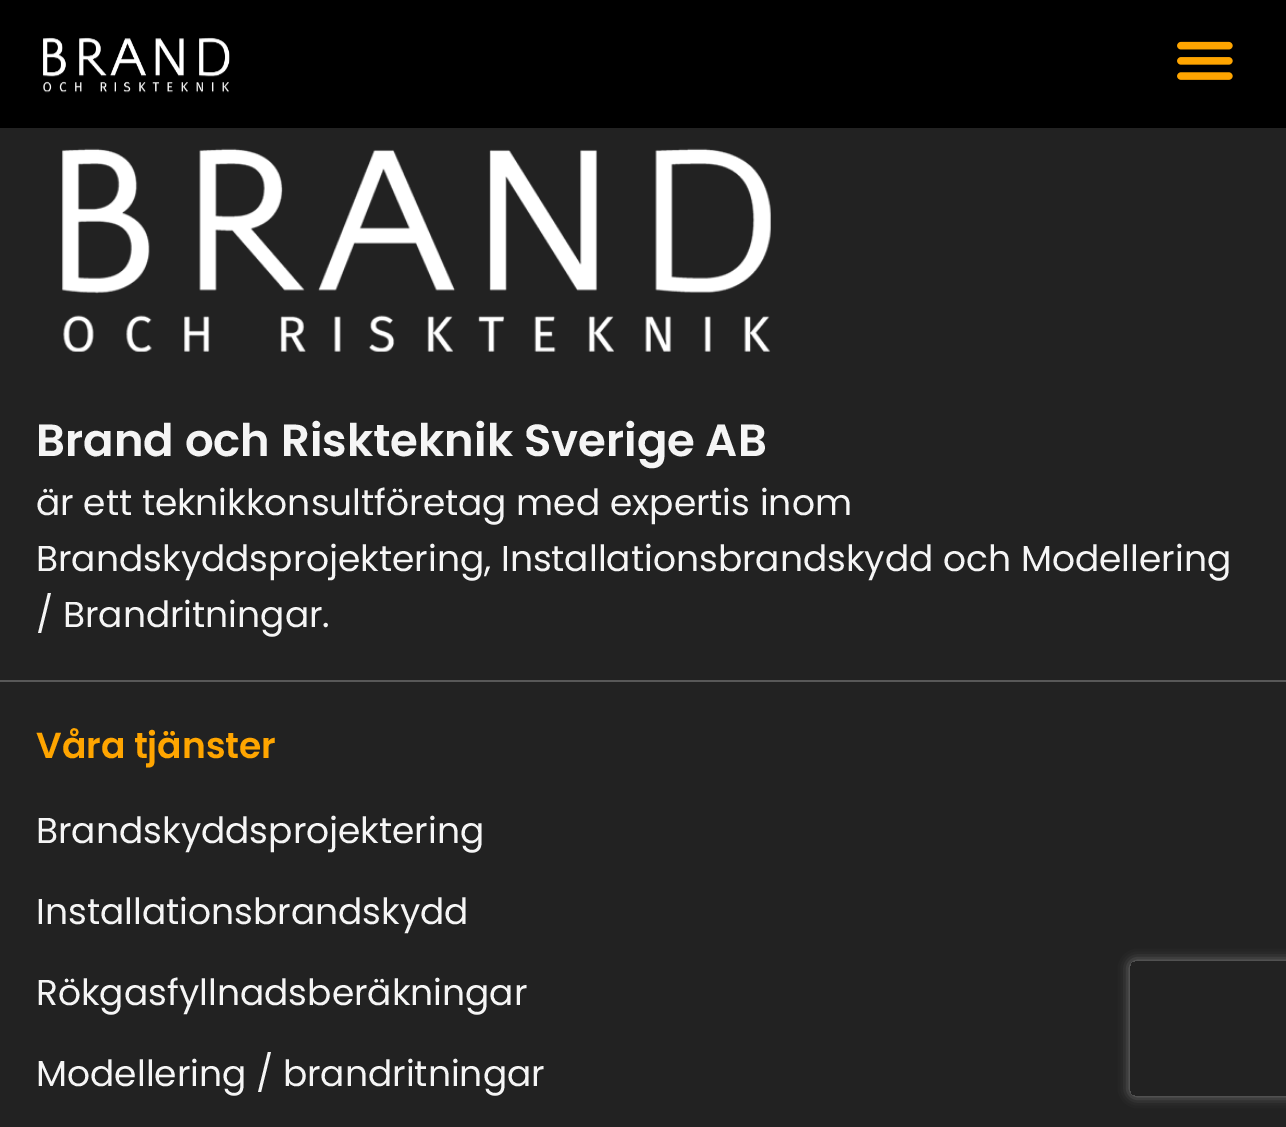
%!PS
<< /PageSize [1286 1127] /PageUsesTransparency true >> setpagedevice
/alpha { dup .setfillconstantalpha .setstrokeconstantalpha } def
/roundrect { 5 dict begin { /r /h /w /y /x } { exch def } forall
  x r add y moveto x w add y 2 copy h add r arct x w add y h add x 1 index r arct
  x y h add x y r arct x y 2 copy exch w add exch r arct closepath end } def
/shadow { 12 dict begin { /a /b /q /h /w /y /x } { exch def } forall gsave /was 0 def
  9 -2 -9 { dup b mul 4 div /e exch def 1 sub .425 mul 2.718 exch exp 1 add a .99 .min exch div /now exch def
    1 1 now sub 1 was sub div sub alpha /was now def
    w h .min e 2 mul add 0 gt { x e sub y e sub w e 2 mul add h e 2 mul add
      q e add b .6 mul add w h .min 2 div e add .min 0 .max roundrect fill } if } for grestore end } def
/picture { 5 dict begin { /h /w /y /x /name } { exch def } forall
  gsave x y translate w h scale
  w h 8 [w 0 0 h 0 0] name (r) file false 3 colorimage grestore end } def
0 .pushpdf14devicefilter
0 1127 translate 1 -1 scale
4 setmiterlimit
0.133 setgray
0 0 1286 1127 rectfill
0 setgray
0 0 1286 128 rectfill
(img1.rgb) 43 37 187 56 picture
(img2.rgb) 1177 41 56 39 picture
(img3.rgb) 62 148 709 204 picture
/Poppins-SemiBold [45 0 0 -45 0 0] selectfont
0.961 setgray
36 456 moveto (Brand och Riskteknik Sverige AB) show
/Poppins-Regular [36 0 0 -36 0 0] selectfont
36 515 moveto (är ett teknikkonsultföretag med expertis inom) show
36 571 moveto (Brandskyddsprojektering, Installationsbrandskydd och Modellering) show
36 627 moveto (/ Brandritningar.) show
0.345 setgray
0 680 1286 2 rectfill
/Poppins-SemiBold [36 0 0 -36 0 0] selectfont
1 0.647 0 setrgbcolor
36 758 moveto (Våra tjänster) show
/Poppins-Regular [36 0 0 -36 0 0] selectfont
0.961 setgray
36 843 moveto (Brandskyddsprojektering) show
36 924 moveto (Installationsbrandskydd) show
36 1005 moveto (Rökgasfyllnadsberäkningar) show
36 1086 moveto (Modellering / brandritningar) show
gsave
newpath 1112 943 moveto 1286 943 lineto 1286 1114 lineto 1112 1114 lineto closepath 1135 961 moveto 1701 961 lineto 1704 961 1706 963 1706 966 curveto 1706 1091 lineto 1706 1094 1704 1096 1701 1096 curveto 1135 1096 lineto 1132 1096 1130 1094 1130 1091 curveto 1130 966 lineto 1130 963 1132 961 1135 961 curveto closepath eoclip newpath
0.502 setgray
1130 961 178 135 5 5.5 1 shadow
grestore
.poppdf14devicefilter showpage
